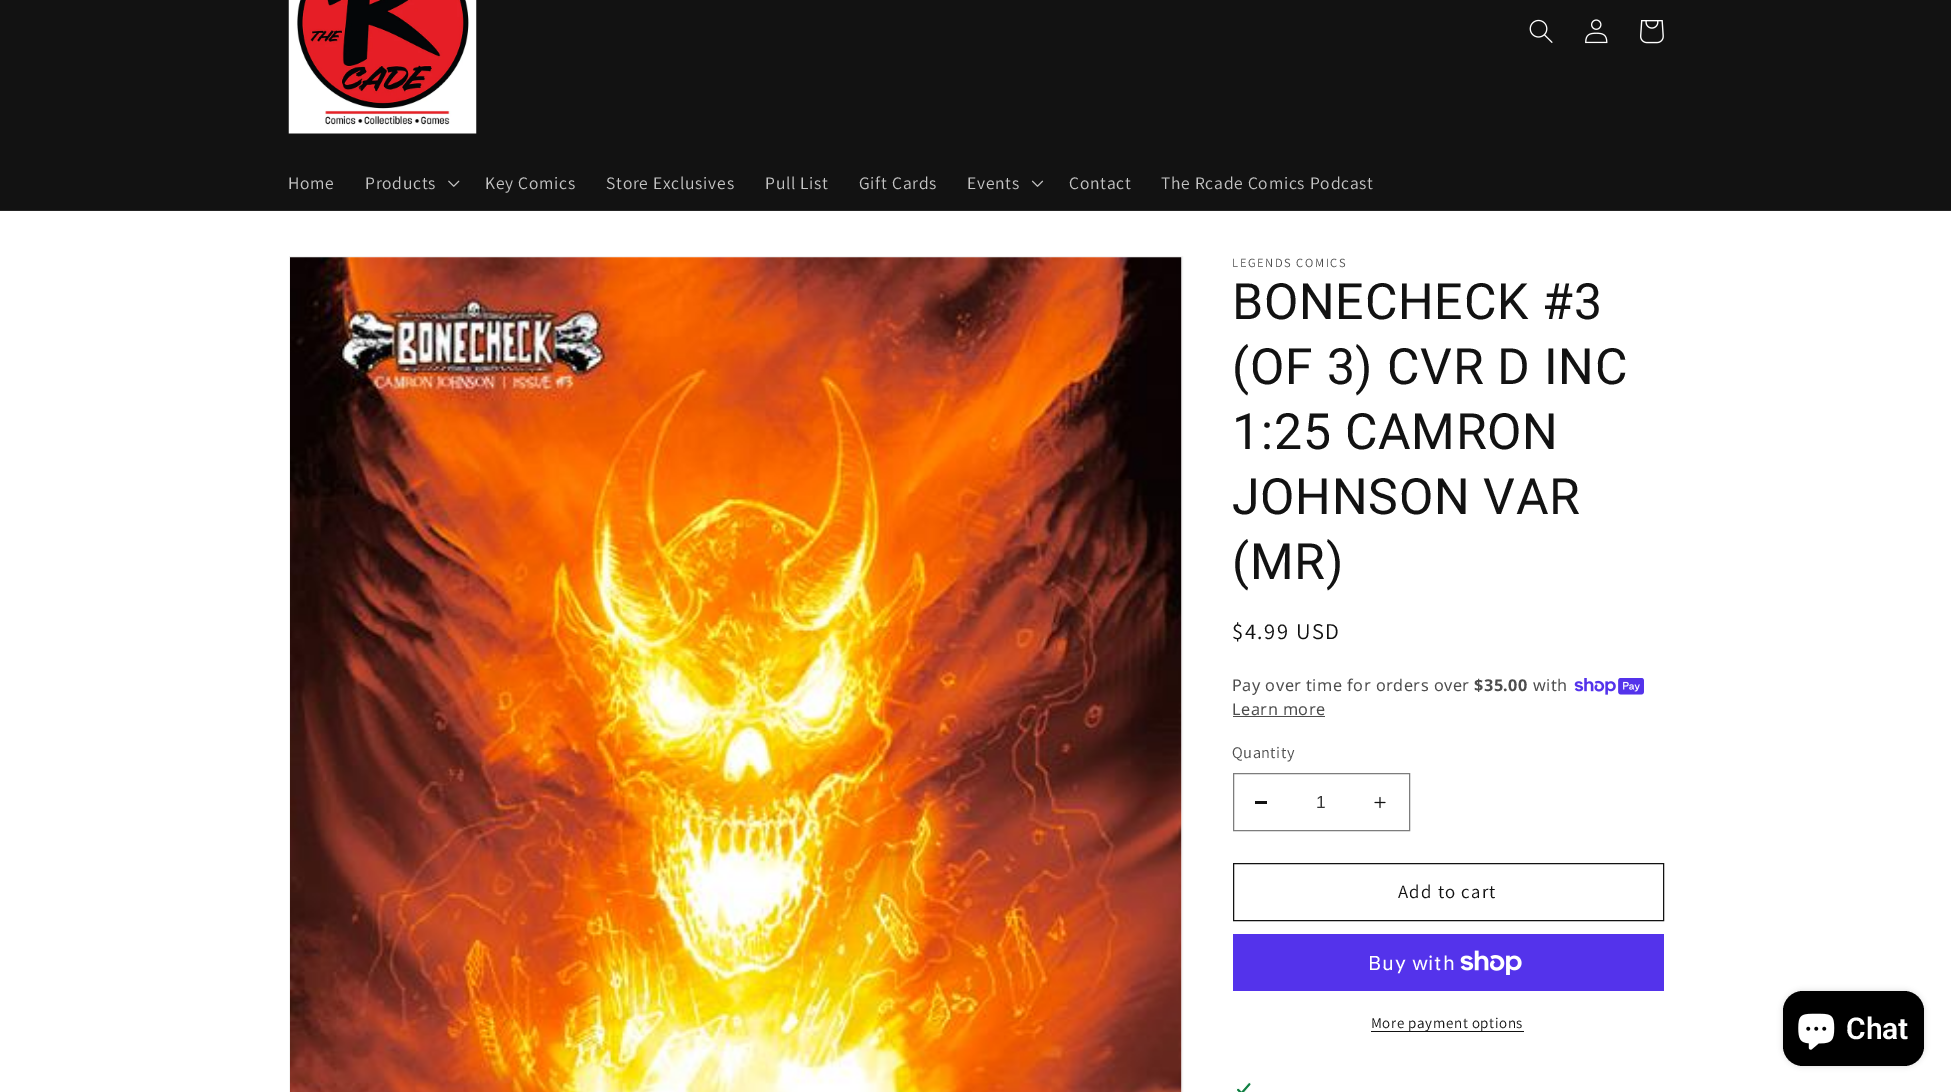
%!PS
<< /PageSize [1951 1092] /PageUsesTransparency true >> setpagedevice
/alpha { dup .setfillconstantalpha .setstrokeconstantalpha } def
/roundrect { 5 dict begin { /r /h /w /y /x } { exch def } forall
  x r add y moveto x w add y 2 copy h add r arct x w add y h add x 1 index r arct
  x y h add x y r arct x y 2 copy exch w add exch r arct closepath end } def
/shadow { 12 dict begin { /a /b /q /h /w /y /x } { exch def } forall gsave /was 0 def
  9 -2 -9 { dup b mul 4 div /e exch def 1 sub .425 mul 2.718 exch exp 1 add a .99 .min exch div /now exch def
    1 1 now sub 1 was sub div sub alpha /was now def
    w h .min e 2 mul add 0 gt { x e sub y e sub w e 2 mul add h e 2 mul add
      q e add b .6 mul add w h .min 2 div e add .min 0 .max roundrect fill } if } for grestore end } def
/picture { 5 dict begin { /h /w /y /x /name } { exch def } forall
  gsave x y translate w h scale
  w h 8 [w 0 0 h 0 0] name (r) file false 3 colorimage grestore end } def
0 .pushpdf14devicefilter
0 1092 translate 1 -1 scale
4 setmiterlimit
1 setgray
0 0 1951 1092 rectfill
0.071 setgray
0 0 1951 210 rectfill
0.145 setgray
0 210 1951 1 rectfill
(img1.rgb) 288 0 189 134 picture
(img2.rgb) 1529 19 24 24 picture
(img3.rgb) 1585 19 23 25 picture
(img4.rgb) 1640 20 24 24 picture
/Assistant-Regular [17.5 0 0 -17.5 0 0] selectfont
0.769 setgray
288 189 moveto 0.75 0 (Home) ashow
365 189 moveto 0.75 0 (Products) ashow
(img5.rgb) 448 180 12 7 picture
485 189 moveto 0.75 0 (Key Comics) ashow
606 189 moveto 0.75 0 (Store Exclusives) ashow
765 189 moveto 0.75 0 (Pull List) ashow
859 189 moveto 0.75 0 (Gift Cards) ashow
967 189 moveto 0.75 0 (Events) ashow
(img6.rgb) 1031 180 13 7 picture
1069 189 moveto 0.75 0 (Contact) ashow
1161 189 moveto 0.75 0 (The Rcade Comics Podcast) ashow
0.953 setgray
289.5 256.5 893 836 rectstroke
(img7.rgb) 290 257 892 835 picture
/Assistant-Regular [12.5 0 0 -12.5 0 0] selectfont
0.302 setgray
1232 267 moveto 1.6 0 (LEGENDS COMICS) ashow
/Roboto-Regular [50 0 0 -50 0 0] selectfont
0.071 setgray
1232 319 moveto 0.75 0 (BONECHECK #3) ashow
1232 384 moveto 0.75 0 (\(OF 3\) CVR D INC) ashow
1232 449 moveto 0.75 0 (1:25 CAMRON) ashow
1232 514 moveto 0.75 0 (JOHNSON VAR) ashow
1232 579 moveto 0.75 0 (\(MR\)) ashow
/Assistant-Regular [22.5 0 0 -22.5 0 0] selectfont
1232 639 moveto 1.6 0 ($4.99 USD) ashow
/NotoSans-Regular [16.25 0 0 -16.25 0 0] selectfont
0.302 setgray
1232 691 moveto 0.5 0 (Pay over time for orders over) ashow
/NotoSans-Bold [16.25 0 0 -16.25 0 0] selectfont
1474 691 moveto 0.5 0 ($35.00) ashow
/NotoSans-Regular [16.25 0 0 -16.25 0 0] selectfont
1533 691 moveto 0.5 0 (with) ashow
(img8.rgb) 1574 678 70 17 picture
1232 715 moveto 0.5 0 (Learn more) ashow
1233 716 92 1 rectfill
/Assistant-Regular [16.25 0 0 -16.25 0 0] selectfont
1232 758 moveto 0.5 0 (Quantity) ashow
0.071 setgray
1255 801 12 3 rectfill
(img9.rgb) 1374 796 12 13 picture
0.49 setgray
1233.5 773.5 176 57 rectstroke
/LiberationSans-Regular [17.5 0 0 -17.5 0 0] selectfont
0.212 setgray
1316 808 moveto (1) show
0.071 setgray
1233.5 863.5 430 57 rectstroke
/Assistant-Regular [18.75 0 0 -18.75 0 0] selectfont
1398 898 moveto 1.25 0 (Add to cart) ashow
0.329 0.2 0.922 setrgbcolor
1233 934 431 57 rectfill
/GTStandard-Regular [20 0 0 -20 0 0] selectfont
1 setgray
1368 970 moveto 0.75 0 (Buy with) ashow
(img10.rgb) 1460 950 62 25 picture
0.071 setgray
1371 1031 153 1 rectfill
/Assistant-Regular [15 0 0 -15 0 0] selectfont
1371 1028 moveto 0.6 0 (More payment options) ashow
(img11.rgb) 1236 1082 15 10 picture
0 setgray
1783 991 141 75 20 3 0.15 shadow
1783 991 141 75 20 roundrect fill
(img12.rgb) 1798 1013 37 37 picture
/Roboto-SemiBold [30 0 0 -30 0 0] selectfont
1 setgray
1846 1039 moveto (Chat) show
.poppdf14devicefilter showpage
